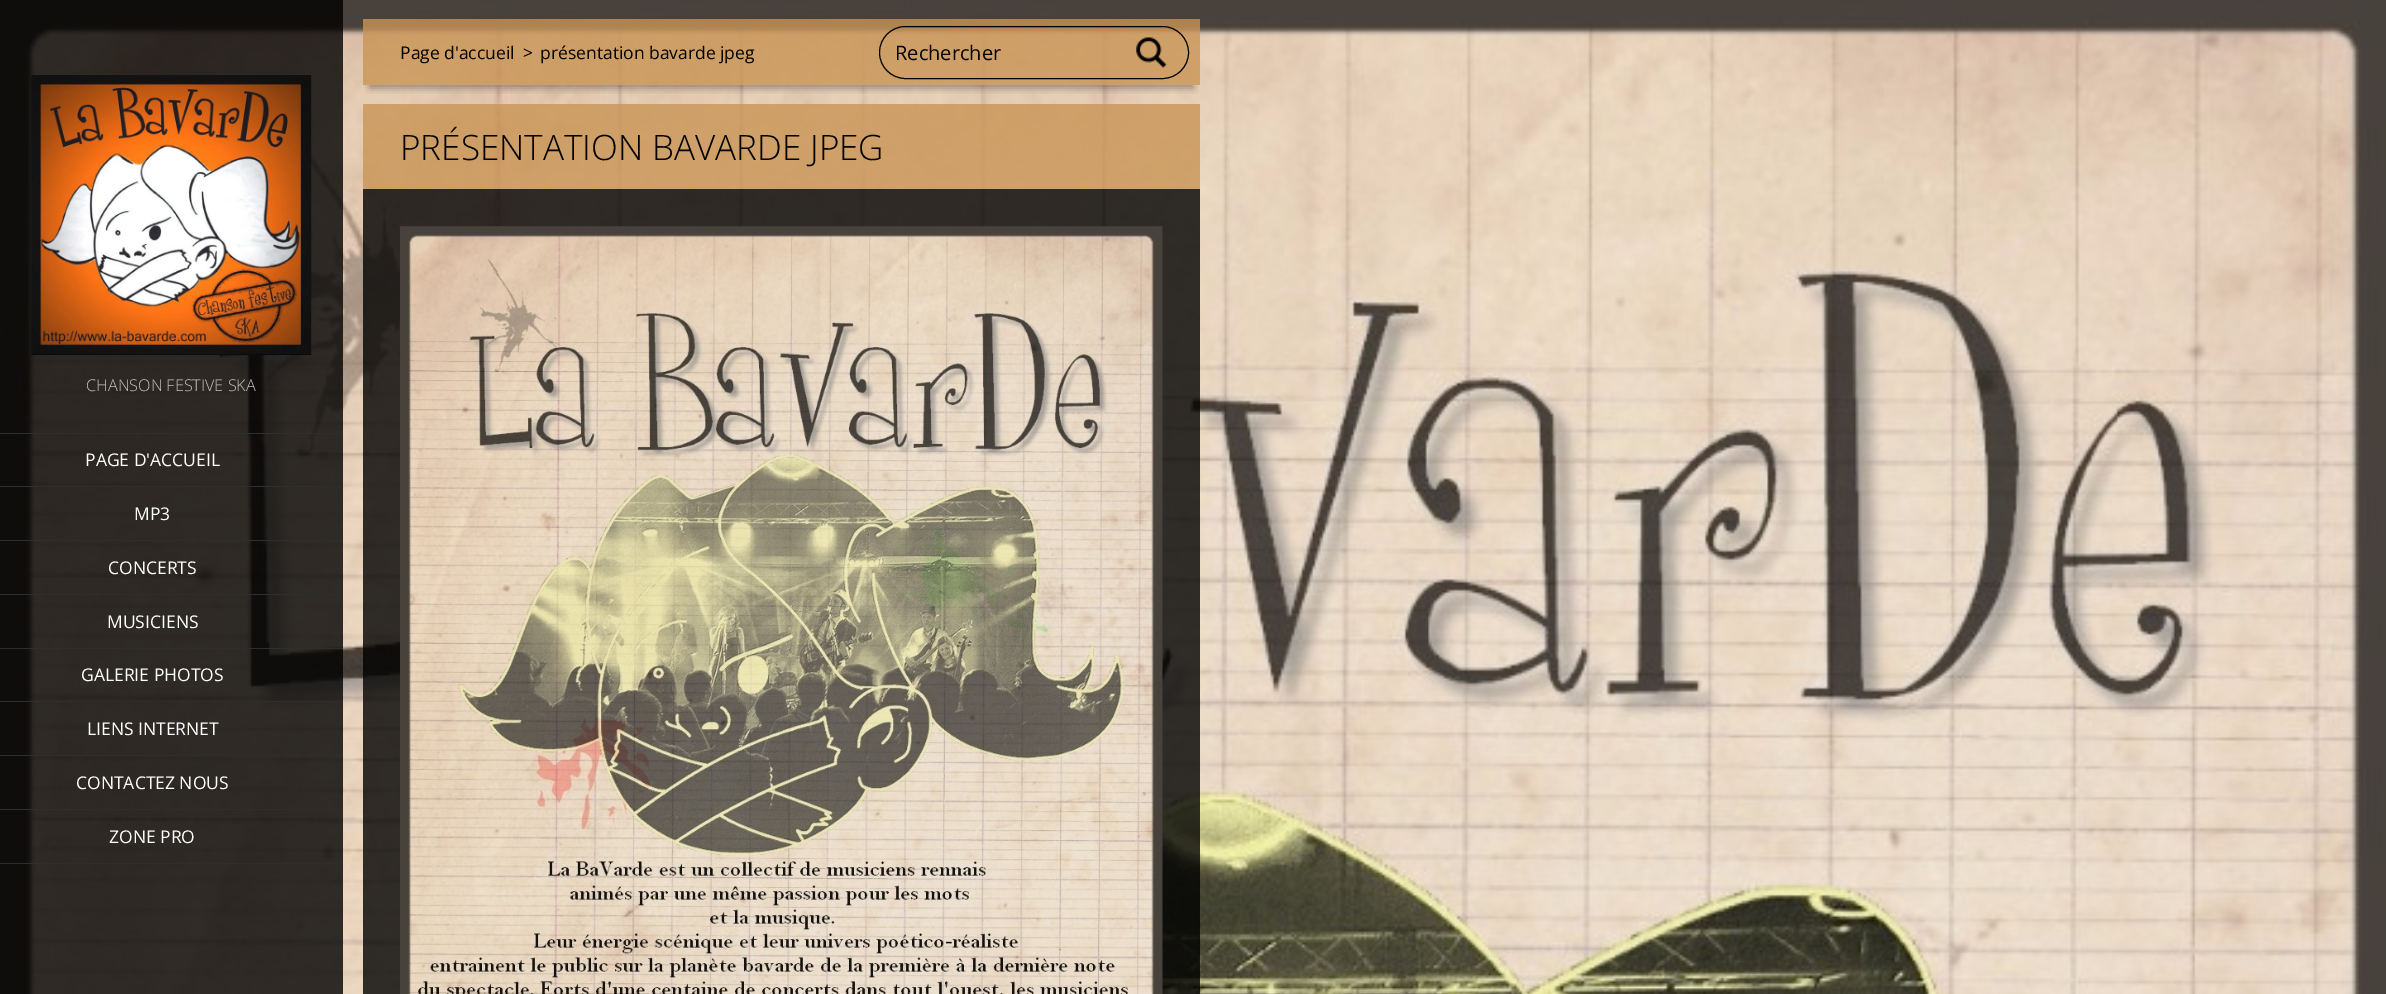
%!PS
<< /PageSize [2386 994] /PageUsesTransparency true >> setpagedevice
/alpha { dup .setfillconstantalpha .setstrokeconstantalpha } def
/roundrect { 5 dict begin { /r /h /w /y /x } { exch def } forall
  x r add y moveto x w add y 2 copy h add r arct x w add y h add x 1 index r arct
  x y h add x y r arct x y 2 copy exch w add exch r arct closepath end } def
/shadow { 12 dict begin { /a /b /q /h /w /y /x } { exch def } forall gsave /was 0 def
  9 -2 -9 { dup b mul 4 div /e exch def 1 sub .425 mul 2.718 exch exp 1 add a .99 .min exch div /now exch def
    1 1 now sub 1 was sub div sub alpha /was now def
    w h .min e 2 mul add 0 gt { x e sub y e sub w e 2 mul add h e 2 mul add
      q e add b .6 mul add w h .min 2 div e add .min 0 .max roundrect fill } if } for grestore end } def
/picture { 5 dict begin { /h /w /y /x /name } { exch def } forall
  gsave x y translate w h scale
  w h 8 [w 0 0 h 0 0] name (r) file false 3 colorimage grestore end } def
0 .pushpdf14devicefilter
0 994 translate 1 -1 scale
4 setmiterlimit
1 setgray
0 0 2386 994 rectfill
(img1.rgb) 0 0 2386 994 picture
gsave
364 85 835 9 rectclip
0 setgray
370 36 823 52 0 4 0.35 shadow
grestore
0.8 alpha
0.788 0.58 0.333 setrgbcolor
363 19 837 66 rectfill
/OpenSans-Regular [17.5 0 0 -17.5 0 0] selectfont
1 alpha
0 setgray
400 59 moveto (Page d'accueil) show
523 59 moveto (>) show
540 59 moveto (présentation bavarde jpeg) show
0.8 alpha
0.788 0.58 0.333 setrgbcolor
363 104 837 85 rectfill
/OpenSans-Light [35 0 0 -35 0 0] selectfont
1 alpha
0 setgray
400 160 moveto (PRÉSENTATION BAVARDE JPEG) show
0.8 alpha
363 189 837 805 rectfill
1 alpha
(img2.rgb) 400 226 763 768 picture
879.5 26.5 309 52 26 roundrect stroke
/OpenSans-Regular [20 0 0 -20 0 0] selectfont
895 60 moveto (Rechercher) show
(img3.rgb) 1136 37 31 31 picture
0.8 alpha
0 0 343 370 rectfill
1 alpha
(img4.rgb) 31 75 281 280 picture
0.8 alpha
0 370 343 63 rectfill
/OpenSans-Light [16.25 0 0 -16.25 0 0] selectfont
1 alpha
0.761 setgray
86 391 moveto (CHANSON FESTIVE SKA) show
0.8 alpha
0 setgray
0 434 343 429 rectfill
1 alpha
0.18 setgray
0 433 343 1 rectfill
0 486 343 1 rectfill
/OpenSans-Regular [17.5 0 0 -17.5 0 0] selectfont
1 setgray
85 466 moveto (PAGE D'ACCUEIL) show
0.18 setgray
0 540 343 1 rectfill
1 setgray
134 520 moveto (MP3) show
0.18 setgray
0 594 343 1 rectfill
1 setgray
108 574 moveto (CONCERTS) show
0.18 setgray
0 648 343 1 rectfill
1 setgray
107 628 moveto (MUSICIENS) show
0.18 setgray
0 701 343 1 rectfill
1 setgray
81 681 moveto (GALERIE PHOTOS) show
0.18 setgray
0 755 343 1 rectfill
1 setgray
87 735 moveto (LIENS INTERNET) show
0.18 setgray
0 809 343 1 rectfill
1 setgray
76 789 moveto (CONTACTEZ NOUS) show
0.18 setgray
0 863 343 1 rectfill
1 setgray
109 843 moveto (ZONE PRO) show
0.8 alpha
0 setgray
0 864 343 130 rectfill
.poppdf14devicefilter showpage
